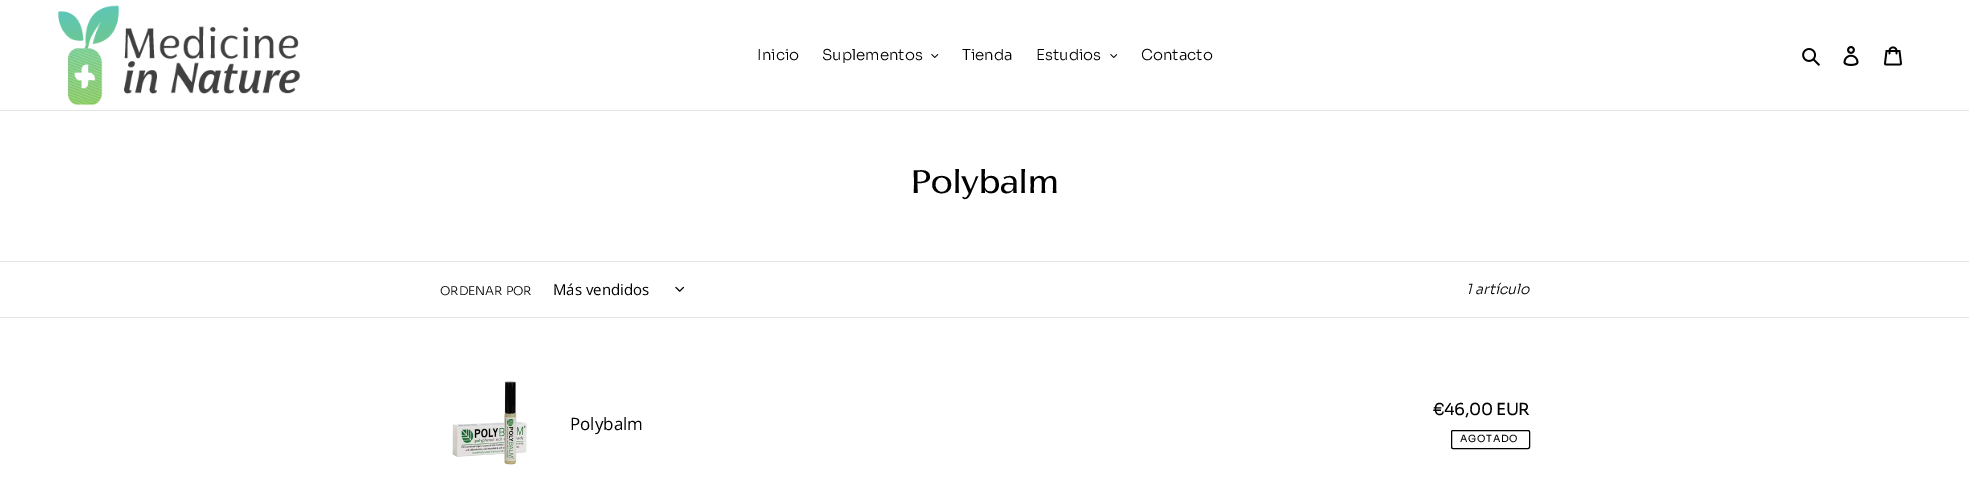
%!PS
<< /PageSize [1969 478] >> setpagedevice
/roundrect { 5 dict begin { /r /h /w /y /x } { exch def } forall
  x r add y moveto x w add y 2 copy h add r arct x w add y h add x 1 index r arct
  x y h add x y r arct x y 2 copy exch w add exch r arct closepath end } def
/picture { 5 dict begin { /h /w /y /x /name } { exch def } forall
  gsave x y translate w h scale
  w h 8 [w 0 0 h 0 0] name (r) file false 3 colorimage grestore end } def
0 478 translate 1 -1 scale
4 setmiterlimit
1 setgray
0 0 1969 478 rectfill
0.894 setgray
0 110 1969 1 rectfill
(img1.rgb) 58 5 243 101 picture
/Sora-Light [15 0 0 -15 0 0] selectfont
0 setgray
757 60 moveto (Inicio) show
822 60 moveto (Suplementos) show
(img2.rgb) 931 54 8 4 picture
962 60 moveto (Tienda) show
1036 60 moveto (Estudios) show
(img3.rgb) 1110 54 7 4 picture
1141 60 moveto (Contacto) show
(img4.rgb) 1802 48 18 18 picture
(img5.rgb) 1843 46 16 20 picture
(img6.rgb) 1884 46 18 20 picture
/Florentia-Regular [33 0 0 -33 0 0] selectfont
911 193 moveto (Polybalm) show
0.894 setgray
0 261 1969 1 rectfill
0 317 1969 1 rectfill
/Sora-Light [12 0 0 -12 0 0] selectfont
0 setgray
440 295 moveto (ORDENAR POR) show
/OpenSans-Regular [15 0 0 -15 0 0] selectfont
553 295 moveto (Más vendidos) show
(img7.rgb) 675 286 9 6 picture
/Sora-LightItalic [14 0 0 -14 0 0] selectfont
1466 294 moveto (1 artículo) show
(img8.rgb) 452 381 76 84 picture
/OpenSans-Regular [17 0 0 -17 0 0] selectfont
570 430 moveto (Polybalm) show
/Sora-Bold [16 0 0 -16 0 0] selectfont
1433 415 moveto (€46,00 EUR) show
1451.5 430.5 78 18 1.5 roundrect stroke
/Sora-Bold [9.5 0 0 -9.5 0 0] selectfont
1460 442 moveto 1 0 (AGOTADO) ashow
showpage
